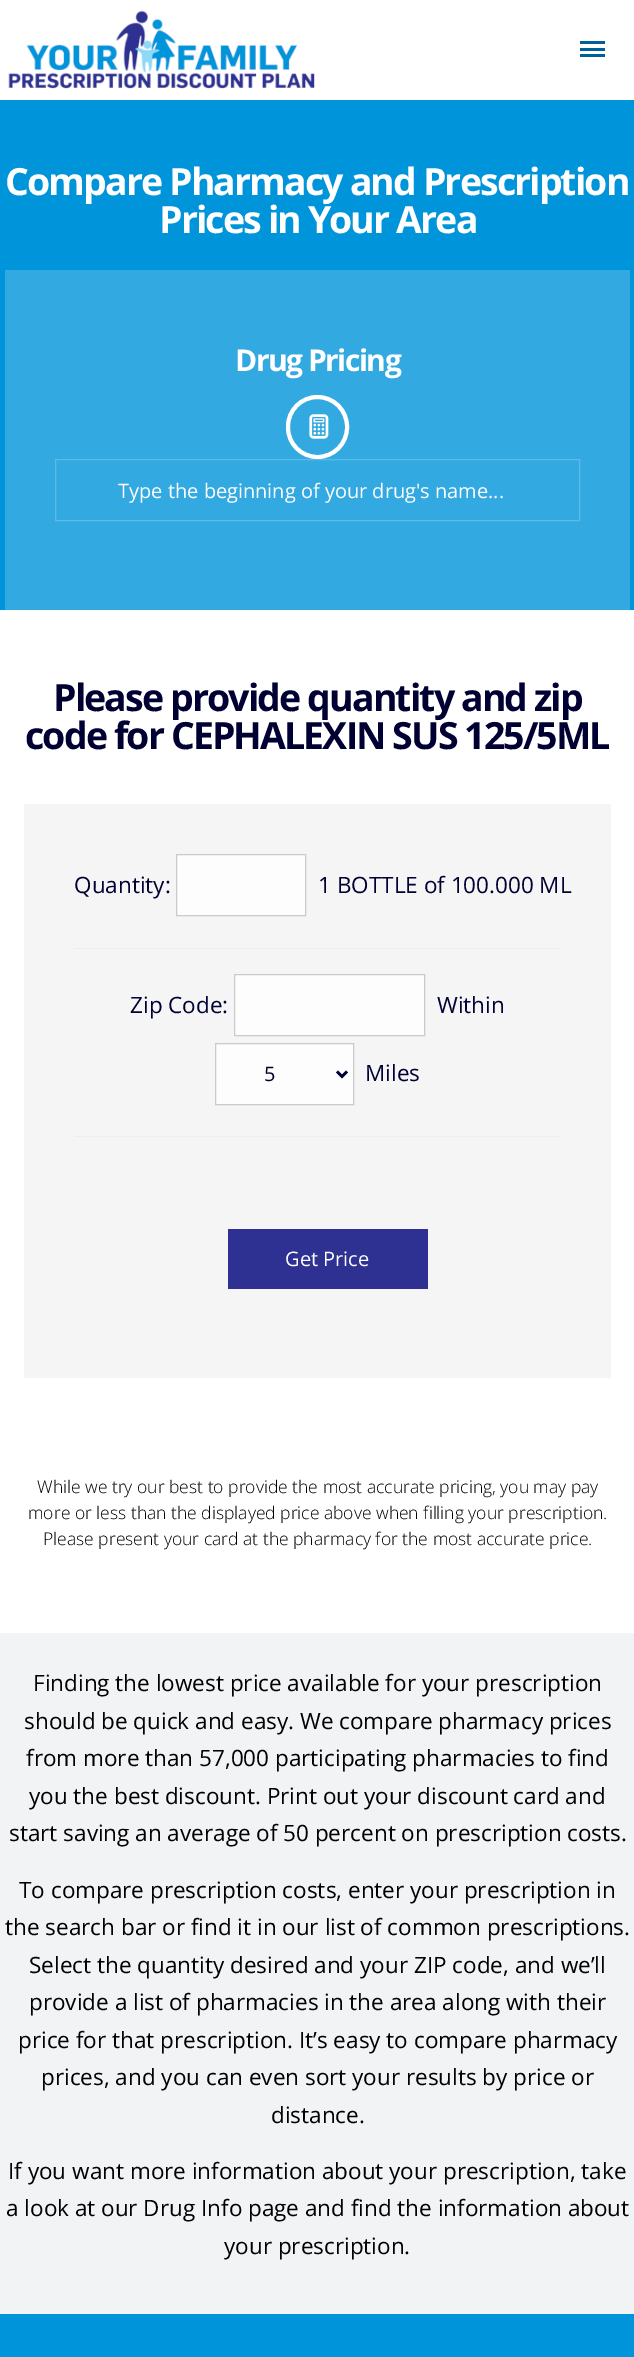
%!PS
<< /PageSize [634 2357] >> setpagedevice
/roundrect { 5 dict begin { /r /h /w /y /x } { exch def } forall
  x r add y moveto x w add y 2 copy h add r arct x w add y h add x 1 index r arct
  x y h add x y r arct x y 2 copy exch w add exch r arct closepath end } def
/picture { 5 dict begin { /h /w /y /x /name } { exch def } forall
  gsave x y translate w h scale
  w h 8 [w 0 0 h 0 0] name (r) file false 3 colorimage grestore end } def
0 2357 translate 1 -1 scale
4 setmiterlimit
1 setgray
0 0 634 2357 rectfill
(img1.rgb) 8 10 307 79 picture
0 0.369 0.6 setrgbcolor
580 48 25 3 rectfill
580 41 25 3 rectfill
580 54 25 3 rectfill
0 0.58 0.855 setrgbcolor
0 100 634 510 rectfill
/OpenSans-Bold [37.5 0 0 -37.5 0 0] selectfont
1 setgray
5 195 moveto -1.9 0 (Compare Pharmacy and Prescription) ashow
159 233 moveto -1.9 0 (Prices in Your Area) ashow
0.2 0.663 0.882 setrgbcolor
5 270 625 340 rectfill
/OpenSans-Bold [30 0 0 -30 0 0] selectfont
1 setgray
235 371 moveto -1.5 0 (Drug Pricing) ashow
4 setlinewidth
288 397 59 60 29.5 roundrect stroke
(img2.rgb) 309 414 20 25 picture
0.361 0.729 0.906 setrgbcolor
1 setlinewidth
55.5 459.5 524 61 rectstroke
/OpenSans-Regular [20 0 0 -20 0 0] selectfont
1 setgray
118 498 moveto (Type the beginning of your drug's name...) show
/OpenSans-Bold [37.5 0 0 -37.5 0 0] selectfont
0 0 0.2 setrgbcolor
53 711 moveto -1.9 0 (Please provide quantity and zip) ashow
25 749 moveto -1.9 0 (code for CEPHALEXIN SUS 125/5ML) ashow
0.961 setgray
24 804 587 574 rectfill
/OpenSans-Regular [22.5 0 0 -22.5 0 0] selectfont
0 0 0.2 setrgbcolor
74 893 moveto (Quantity:) show
0.996 0.992 0.992 setrgbcolor
newpath 176.5 854.5 moveto 305.5 854.5 lineto 305.5 915.5 lineto 176.5 915.5 lineto closepath gsave fill grestore
0.796 0.792 0.792 setrgbcolor
stroke
0 0 0.2 setrgbcolor
318 893 moveto (1 BOTTLE of 100.000 ML) show
0.933 setgray
74 948 487 1 rectfill
0 0 0.2 setrgbcolor
130 1013 moveto (Zip Code:) show
0.996 0.992 0.992 setrgbcolor
newpath 234.5 974.5 moveto 424.5 974.5 lineto 424.5 1035.5 lineto 234.5 1035.5 lineto closepath gsave fill grestore
0.796 0.792 0.792 setrgbcolor
stroke
0 0 0.2 setrgbcolor
437 1013 moveto (Within) show
0.996 0.992 0.992 setrgbcolor
newpath 215.5 1043.5 moveto 353.5 1043.5 lineto 353.5 1104.5 lineto 215.5 1104.5 lineto closepath gsave fill grestore
0.796 0.792 0.792 setrgbcolor
stroke
0 0 0.2 setrgbcolor
2.5 setlinewidth
newpath 337 1071.5 moveto 342 1076.5 lineto 347 1071.5 lineto stroke
/OpenSans-Regular [20 0 0 -20 0 0] selectfont
264 1081 moveto (5) show
/OpenSans-Regular [22.5 0 0 -22.5 0 0] selectfont
365 1081 moveto (Miles) show
0.933 setgray
74 1136 487 1 rectfill
0.18 0.192 0.573 setrgbcolor
228 1229 200 60 rectfill
/OpenSans-Regular [20 0 0 -20 0 0] selectfont
1 setgray
285 1266 moveto (Get Price) show
/OpenSans-Light [17.5 0 0 -17.5 0 0] selectfont
0 setgray
37 1493 moveto (While we try our best to provide the most accurate pricing, you may pay) show
28 1519 moveto (more or less than the displayed price above when filling your prescription.) show
43 1545 moveto (Please present your card at the pharmacy for the most accurate price.) show
0.945 0.953 0.957 setrgbcolor
0 1633 634 681 rectfill
/OpenSans-Regular [22.5 0 0 -22.5 0 0] selectfont
0 setgray
33 1691 moveto (Finding the lowest price available for your prescription) show
24 1729 moveto (should be quick and easy. We compare pharmacy prices) show
26 1766 moveto (from more than 57,000 participating pharmacies to find) show
29 1804 moveto (you the best discount. Print out your discount card and) show
9 1841 moveto (start saving an average of 50 percent on prescription costs.) show
19 1898 moveto (To compare prescription costs, enter your prescription in) show
5 1935 moveto (the search bar or find it in our list of common prescriptions.) show
29 1973 moveto (Select the quantity desired and your ZIP code, and we’ll) show
29 2010 moveto (provide a list of pharmacies in the area along with their) show
18 2048 moveto (price for that prescription. It’s easy to compare pharmacy) show
41 2085 moveto (prices, and you can even sort your results by price or) show
271 2123 moveto (distance.) show
8 2179 moveto (If you want more information about your prescription, take) show
6 2216 moveto (a look at our Drug Info page and find the information about) show
224 2254 moveto (your prescription.) show
0 0.58 0.855 setrgbcolor
0 2314 634 43 rectfill
showpage
